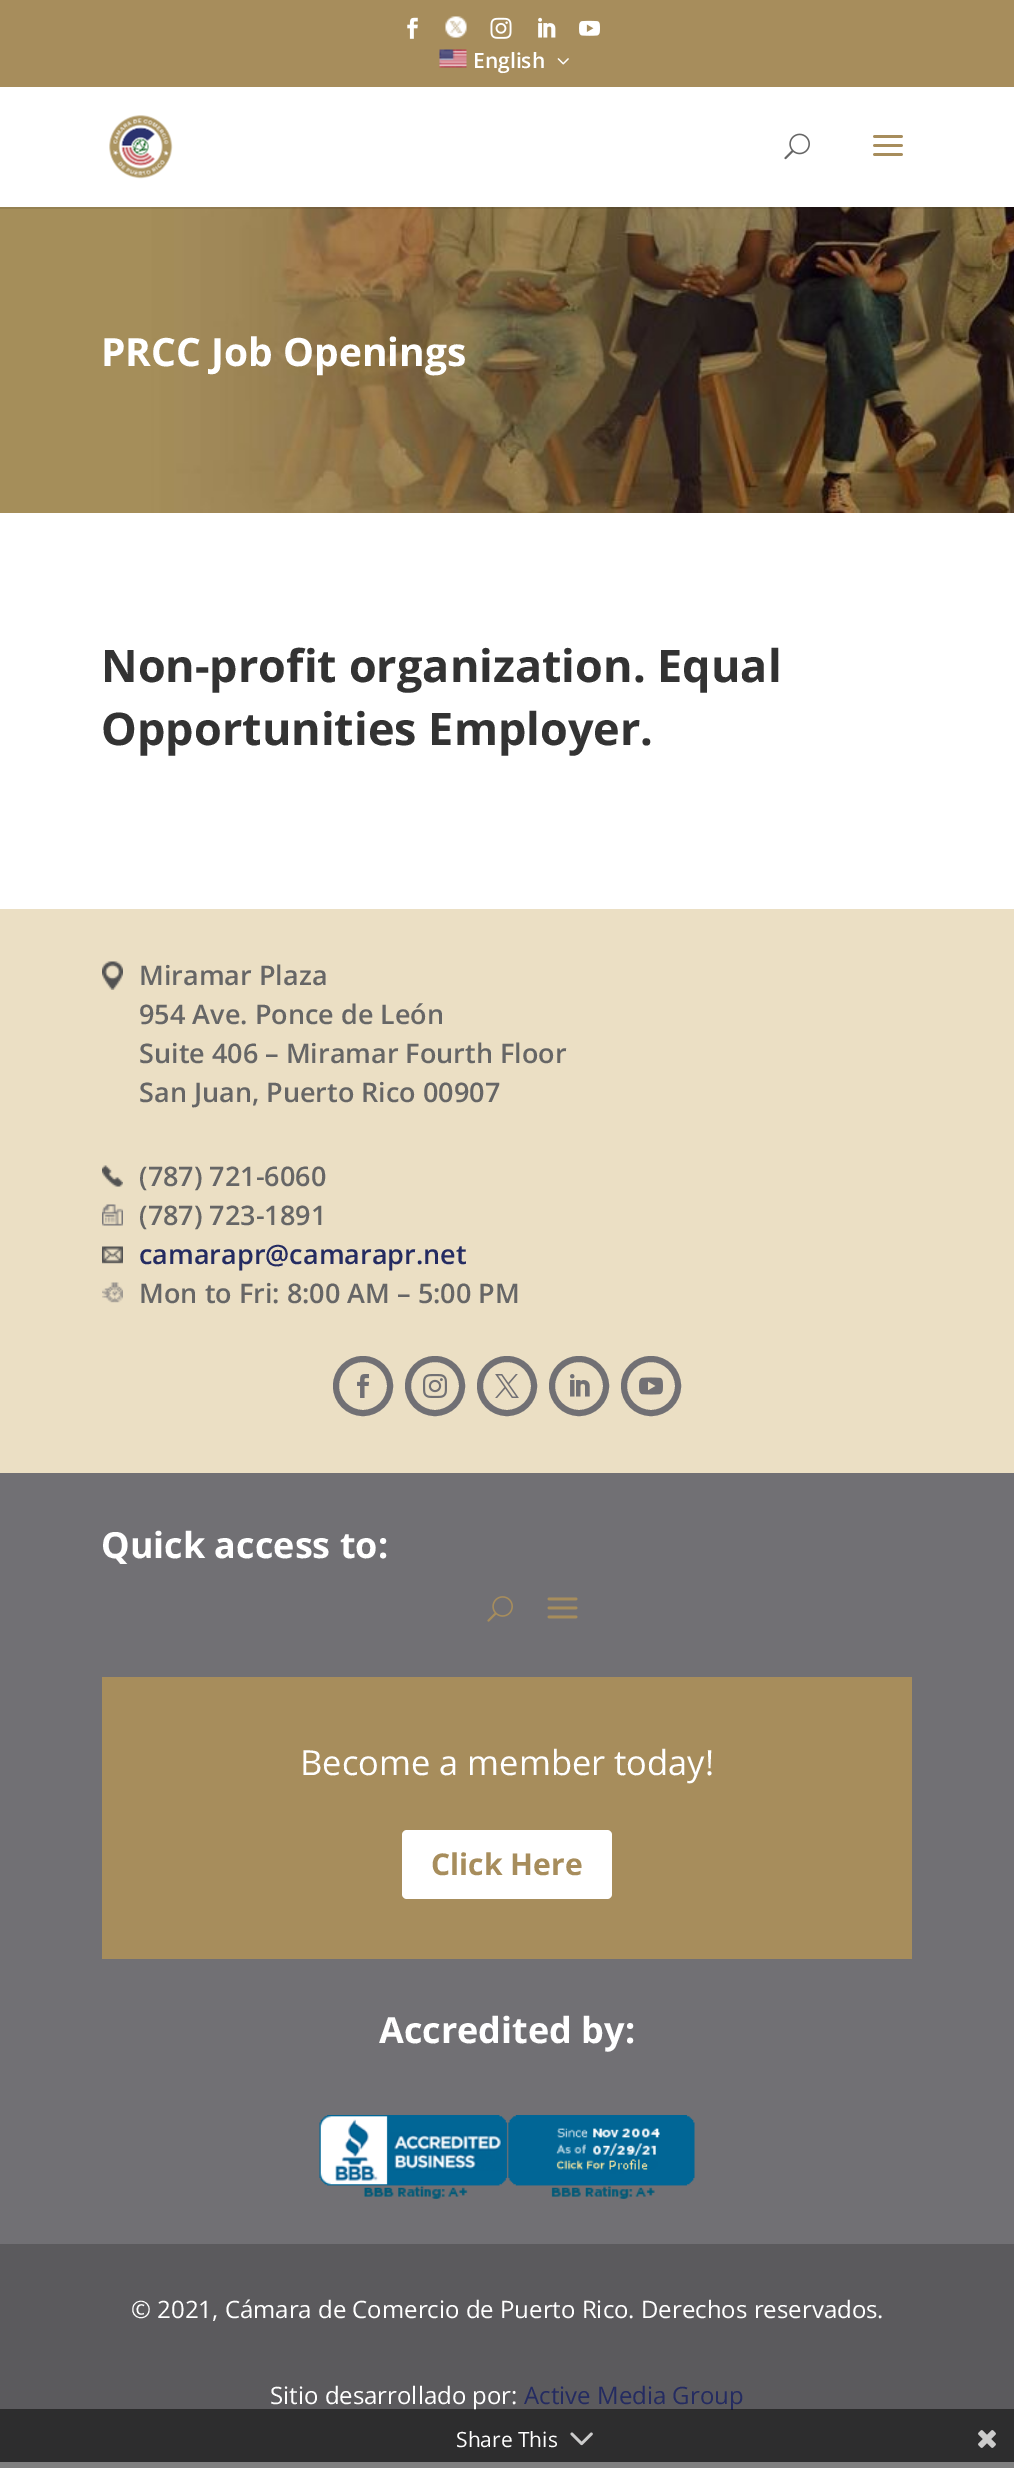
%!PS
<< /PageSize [1014 2468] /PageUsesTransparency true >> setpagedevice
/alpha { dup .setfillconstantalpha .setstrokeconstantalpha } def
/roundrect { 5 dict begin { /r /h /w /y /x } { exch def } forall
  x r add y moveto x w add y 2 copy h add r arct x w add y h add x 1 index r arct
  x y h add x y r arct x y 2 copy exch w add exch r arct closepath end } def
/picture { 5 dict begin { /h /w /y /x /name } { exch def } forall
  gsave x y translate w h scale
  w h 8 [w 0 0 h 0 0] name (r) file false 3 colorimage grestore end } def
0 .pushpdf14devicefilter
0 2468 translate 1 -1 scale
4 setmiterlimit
1 setgray
0 0 1014 2468 rectfill
0.655 0.553 0.361 setrgbcolor
0 0 1014 87 rectfill
(img1.rgb) 407 17 11 22 picture
(img2.rgb) 445 16 22 22 picture
(img3.rgb) 490 17 22 22 picture
(img4.rgb) 538 17 18 21 picture
(img5.rgb) 579 20 21 16 picture
(img6.rgb) 439 49 28 19 picture
/OpenSans-SemiBold [21 0 0 -21 0 0] selectfont
1 setgray
473 68 moveto (English) show
(img7.rgb) 557 58 12 7 picture
(img11.rgb) 0 207 1014 306 picture
0.1 alpha
0 setgray
0 207 1014 2 rectfill
1 alpha
(img8.rgb) 109 115 64 64 picture
(img9.rgb) 784 133 26 27 picture
(img10.rgb) 873 135 30 21 picture
/OpenSans-Bold [39 0 0 -39 0 0] selectfont
1 setgray
101 366 moveto (PRCC Job Openings) show
/OpenSans-Bold [45 0 0 -45 0 0] selectfont
0.2 setgray
101 682 moveto (Non-profit organization. Equal) show
101 745 moveto (Opportunities Employer.) show
0.922 0.875 0.769 setrgbcolor
0 909 1014 564 rectfill
(img12.rgb) 102 961 21 29 picture
/OpenSans-SemiBold [27 0 0 -27 0 0] selectfont
0.4 setgray
139 985 moveto (Miramar Plaza) show
139 1024 moveto (954 Ave. Ponce de León) show
139 1063 moveto (Suite 406 – Miramar Fourth Floor) show
139 1102 moveto (San Juan, Puerto Rico 00907) show
(img13.rgb) 102 1165 21 22 picture
139 1186 moveto (\(787\) 721-6060) show
(img14.rgb) 102 1204 21 22 picture
139 1225 moveto (\(787\) 723-1891) show
(img15.rgb) 102 1246 21 18 picture
0.141 0.169 0.38 setrgbcolor
139 1264 moveto (camarapr@camarapr.net) show
(img16.rgb) 102 1282 21 21 picture
0.4 setgray
139 1303 moveto (Mon to Fri: 8:00 AM – 5:00 PM) show
0.443 0.439 0.455 setrgbcolor
6 setlinewidth
newpath 363 1386 27 0 360 arc closepath stroke
(img17.rgb) 357 1374 12 24 picture
newpath 435 1386 27 0 360 arc closepath stroke
(img18.rgb) 423 1374 24 24 picture
newpath 507 1386 27 0 360 arc closepath stroke
(img19.rgb) 495 1374 24 24 picture
newpath 579 1386 27 0 360 arc closepath stroke
(img20.rgb) 570 1374 20 23 picture
newpath 651 1386 27 0 360 arc closepath stroke
(img21.rgb) 639 1377 24 18 picture
0 1473 1014 771 rectfill
/OpenSans-Bold [36 0 0 -36 0 0] selectfont
1 setgray
101 1558 moveto (Quick access to:) show
(img22.rgb) 487 1596 26 26 picture
(img23.rgb) 547 1597 31 22 picture
0.655 0.553 0.361 setrgbcolor
102 1677 810 282 rectfill
/OpenSans-Regular [34.5 0 0 -34.5 0 0] selectfont
1 setgray
300 1775 moveto (Become a member today!) show
402 1830 210 69 5 roundrect fill
/OpenSans-Bold [30 0 0 -30 0 0] selectfont
0.655 0.553 0.361 setrgbcolor
431 1875 moveto (Click Here) show
/OpenSans-Bold [36 0 0 -36 0 0] selectfont
1 setgray
379 2043 moveto (Accredited by:) show
(img24.rgb) 319 2115 376 84 picture
0.357 0.353 0.365 setrgbcolor
0 2244 1014 218 rectfill
/OpenSans-Regular [24 0 0 -24 0 0] selectfont
1 setgray
131 2318 moveto (© 2021, Cámara de Comercio de Puerto Rico. Derechos reservados.) show
270 2404 moveto (Sitio desarrollado por:) show
0.141 0.169 0.38 setrgbcolor
524 2404 moveto (Active Media Group) show
0.5 alpha
0 setgray
0 2409 1014 59 rectfill
/OpenSans-Regular [21 0 0 -21 0 0] selectfont
1 alpha
1 setgray
456 2447 moveto (Share This) show
(img25.rgb) 570 2432 23 14 picture
(img26.rgb) 978 2430 18 18 picture
.poppdf14devicefilter showpage
